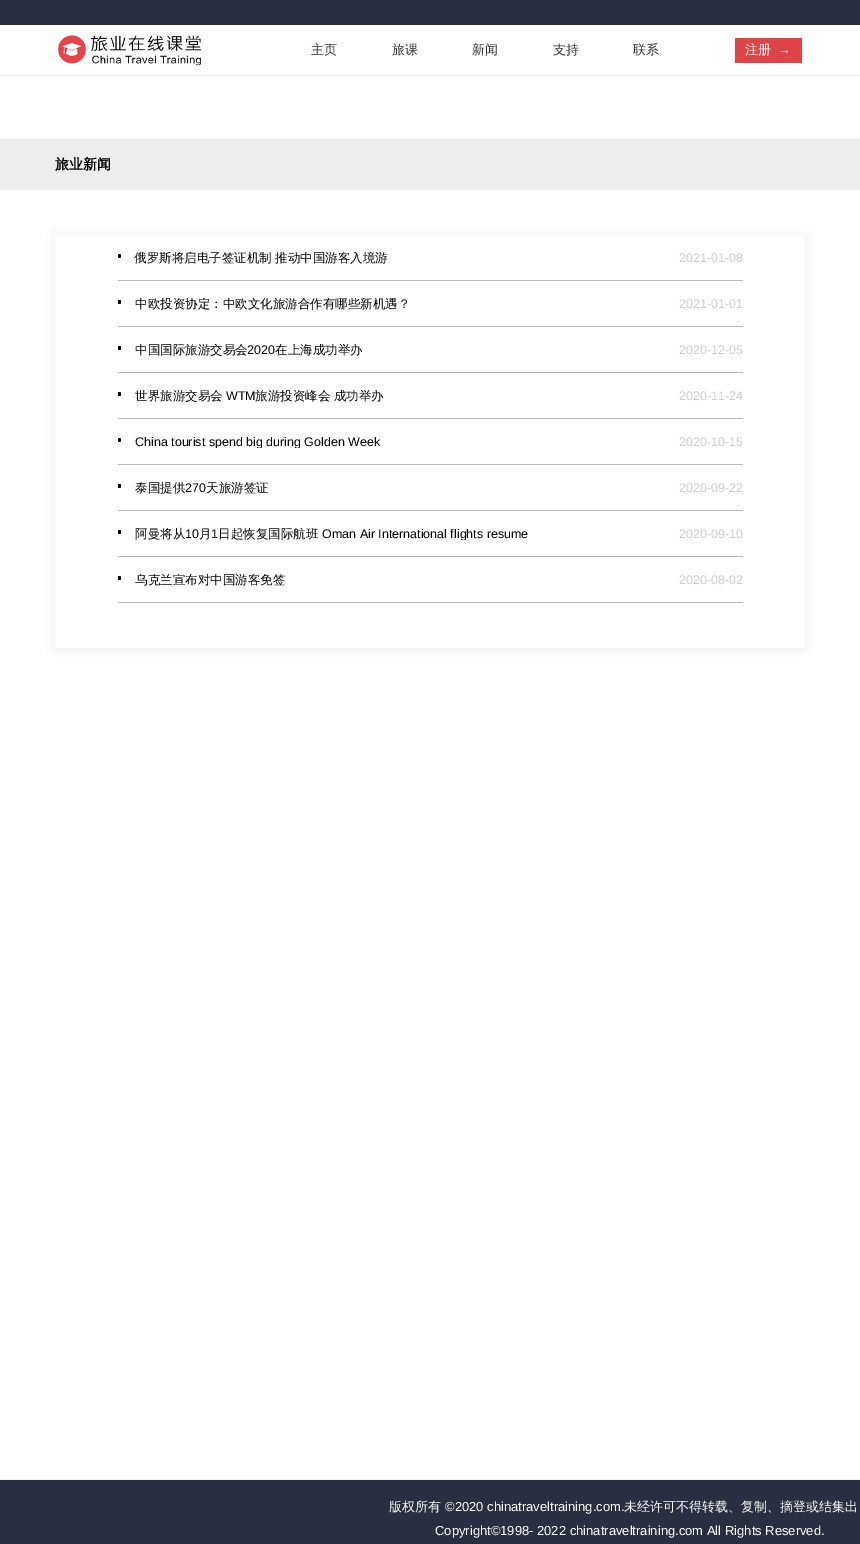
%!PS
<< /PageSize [860 1544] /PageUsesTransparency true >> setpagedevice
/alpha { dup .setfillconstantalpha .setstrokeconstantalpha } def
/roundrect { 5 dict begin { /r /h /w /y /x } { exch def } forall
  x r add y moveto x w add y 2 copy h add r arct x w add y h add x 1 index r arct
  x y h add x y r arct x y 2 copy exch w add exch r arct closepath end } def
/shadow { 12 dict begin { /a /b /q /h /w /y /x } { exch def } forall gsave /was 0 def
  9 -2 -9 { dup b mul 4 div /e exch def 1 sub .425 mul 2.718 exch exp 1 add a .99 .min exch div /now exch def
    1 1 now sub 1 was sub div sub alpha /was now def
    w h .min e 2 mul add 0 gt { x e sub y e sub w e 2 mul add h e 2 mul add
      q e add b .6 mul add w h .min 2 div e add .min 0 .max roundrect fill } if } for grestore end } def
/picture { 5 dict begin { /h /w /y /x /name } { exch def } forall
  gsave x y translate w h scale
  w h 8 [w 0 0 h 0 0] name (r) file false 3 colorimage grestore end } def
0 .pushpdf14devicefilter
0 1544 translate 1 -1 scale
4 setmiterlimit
1 setgray
0 0 860 1544 rectfill
0.161 0.184 0.251 setrgbcolor
0 0 860 25 rectfill
0.922 setgray
0 75 860 1 rectfill
(img1.rgb) 58 35 143 30 picture
/WenQuanYiZenHei-Medium [13 0 0 -13 0 0] selectfont
0.2 setgray
311 54 moveto (主页) show
392 54 moveto (旅课) show
472 54 moveto (新闻) show
553 54 moveto (支持) show
633 54 moveto (联系) show
0.871 0.267 0.275 setrgbcolor
735 38 67 25 rectfill
1 setgray
745 54 moveto (注册) show
/LiberationSans-Regular [13 0 0 -13 0 0] selectfont
778 54 moveto (→) show
0.929 setgray
0 139 860 51 rectfill
/WenQuanYiZenHei-Bold [14 0 0 -14 0 0] selectfont
0 setgray
55 169 moveto (旅业新闻) show
gsave
newpath 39 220 moveto 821 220 lineto 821 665 lineto 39 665 lineto closepath 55 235 moveto 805 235 lineto 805 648 lineto 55 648 lineto closepath eoclip newpath
0.024 0 0.004 setrgbcolor
55 236 750 413 0 5 0.08 shadow
grestore
0.729 setgray
118 280 625 1 rectfill
0 setgray
118 254 3 4 1.5 roundrect fill
gsave
118 252 551 12 rectclip
/WenQuanYiZenHei-Medium [12.5 0 0 -12.5 0 0] selectfont
134 262 moveto (俄罗斯将启电子签证机制 推动中国游客入境游) show
grestore
/LiberationSans-Regular [12.5 0 0 -12.5 0 0] selectfont
0.8 setgray
679 262 moveto (2021-01-08) show
0.729 setgray
118 326 625 1 rectfill
0 setgray
118 300 3 4 1.5 roundrect fill
gsave
118 298 551 12 rectclip
/WenQuanYiZenHei-Medium [12.5 0 0 -12.5 0 0] selectfont
135 308 moveto (中欧投资协定：中欧文化旅游合作有哪些新机遇？) show
grestore
0.8 setgray
679 308 moveto (2021-01-01) show
0.729 setgray
118 372 625 1 rectfill
0 setgray
118 346 3 4 1.5 roundrect fill
gsave
118 344 551 12 rectclip
/WenQuanYiZenHei-Medium [12.5 0 0 -12.5 0 0] selectfont
135 354 moveto (中国国际旅游交易会) show
grestore
247 354 moveto (2020) show
gsave
118 344 551 12 rectclip
/WenQuanYiZenHei-Medium [12.5 0 0 -12.5 0 0] selectfont
275 354 moveto (在上海成功举办) show
grestore
0.8 setgray
679 354 moveto (2020-12-05) show
0.729 setgray
118 418 625 1 rectfill
0 setgray
118 392 3 4 1.5 roundrect fill
gsave
118 390 551 12 rectclip
/WenQuanYiZenHei-Medium [12.5 0 0 -12.5 0 0] selectfont
135 400 moveto (世界旅游交易会) show
grestore
226 400 moveto (WTM) show
gsave
118 390 551 12 rectclip
/WenQuanYiZenHei-Medium [12.5 0 0 -12.5 0 0] selectfont
255 400 moveto (旅游投资峰会 成功举办) show
grestore
0.8 setgray
679 400 moveto (2020-11-24) show
0.729 setgray
118 464 625 1 rectfill
0 setgray
118 438 3 4 1.5 roundrect fill
gsave
118 436 551 12 rectclip
135 446 moveto (China tourist spend big during Golden Week) show
grestore
0.8 setgray
679 446 moveto (2020-10-15) show
0.729 setgray
118 510 625 1 rectfill
0 setgray
118 484 3 4 1.5 roundrect fill
/WenQuanYiZenHei-Medium [12.5 0 0 -12.5 0 0] selectfont
135 492 moveto (泰国提供) show
/LiberationSans-Regular [12.5 0 0 -12.5 0 0] selectfont
185 492 moveto (270) show
/WenQuanYiZenHei-Medium [12.5 0 0 -12.5 0 0] selectfont
206 492 moveto (天旅游签证) show
/LiberationSans-Regular [12.5 0 0 -12.5 0 0] selectfont
0.8 setgray
679 492 moveto (2020-09-22) show
0.729 setgray
118 556 625 1 rectfill
0 setgray
118 530 3 4 1.5 roundrect fill
/WenQuanYiZenHei-Medium [12.5 0 0 -12.5 0 0] selectfont
135 538 moveto (阿曼将从) show
/LiberationSans-Regular [12.5 0 0 -12.5 0 0] selectfont
185 538 moveto (10) show
/WenQuanYiZenHei-Medium [12.5 0 0 -12.5 0 0] selectfont
199 538 moveto (月) show
/LiberationSans-Regular [12.5 0 0 -12.5 0 0] selectfont
211 538 moveto (1) show
gsave
118 528 551 12 rectclip
/WenQuanYiZenHei-Medium [12.5 0 0 -12.5 0 0] selectfont
218 538 moveto (日起恢复国际航班) show
/LiberationSans-Regular [12.5 0 0 -12.5 0 0] selectfont
322 538 moveto (Oman Air International flights resume) show
grestore
0.8 setgray
679 538 moveto (2020-09-10) show
0.729 setgray
118 602 625 1 rectfill
0 setgray
118 576 3 4 1.5 roundrect fill
gsave
118 574 551 12 rectclip
/WenQuanYiZenHei-Medium [12.5 0 0 -12.5 0 0] selectfont
135 584 moveto (乌克兰宣布对中国游客免签) show
grestore
0.8 setgray
679 584 moveto (2020-08-02) show
0.161 0.184 0.251 setrgbcolor
0 1480 860 64 rectfill
0.945 0.949 0.953 setrgbcolor
0 1479 860 1 rectfill
/WenQuanYiZenHei-Medium [13 0 0 -13 0 0] selectfont
1 setgray
389 1511 moveto (版权所有) show
/LiberationSans-Regular [13 0 0 -13 0 0] selectfont
445 1511 moveto (©2020 chinatraveltraining.com.) show
/WenQuanYiZenHei-Medium [13 0 0 -13 0 0] selectfont
624 1511 moveto (未经许可不得转载、复制、摘登或结集出) show
/LiberationSans-Regular [13 0 0 -13 0 0] selectfont
435 1535 moveto (Copyright©1998- 2022 chinatraveltraining.com All Rights Reserved.) show
.poppdf14devicefilter showpage
